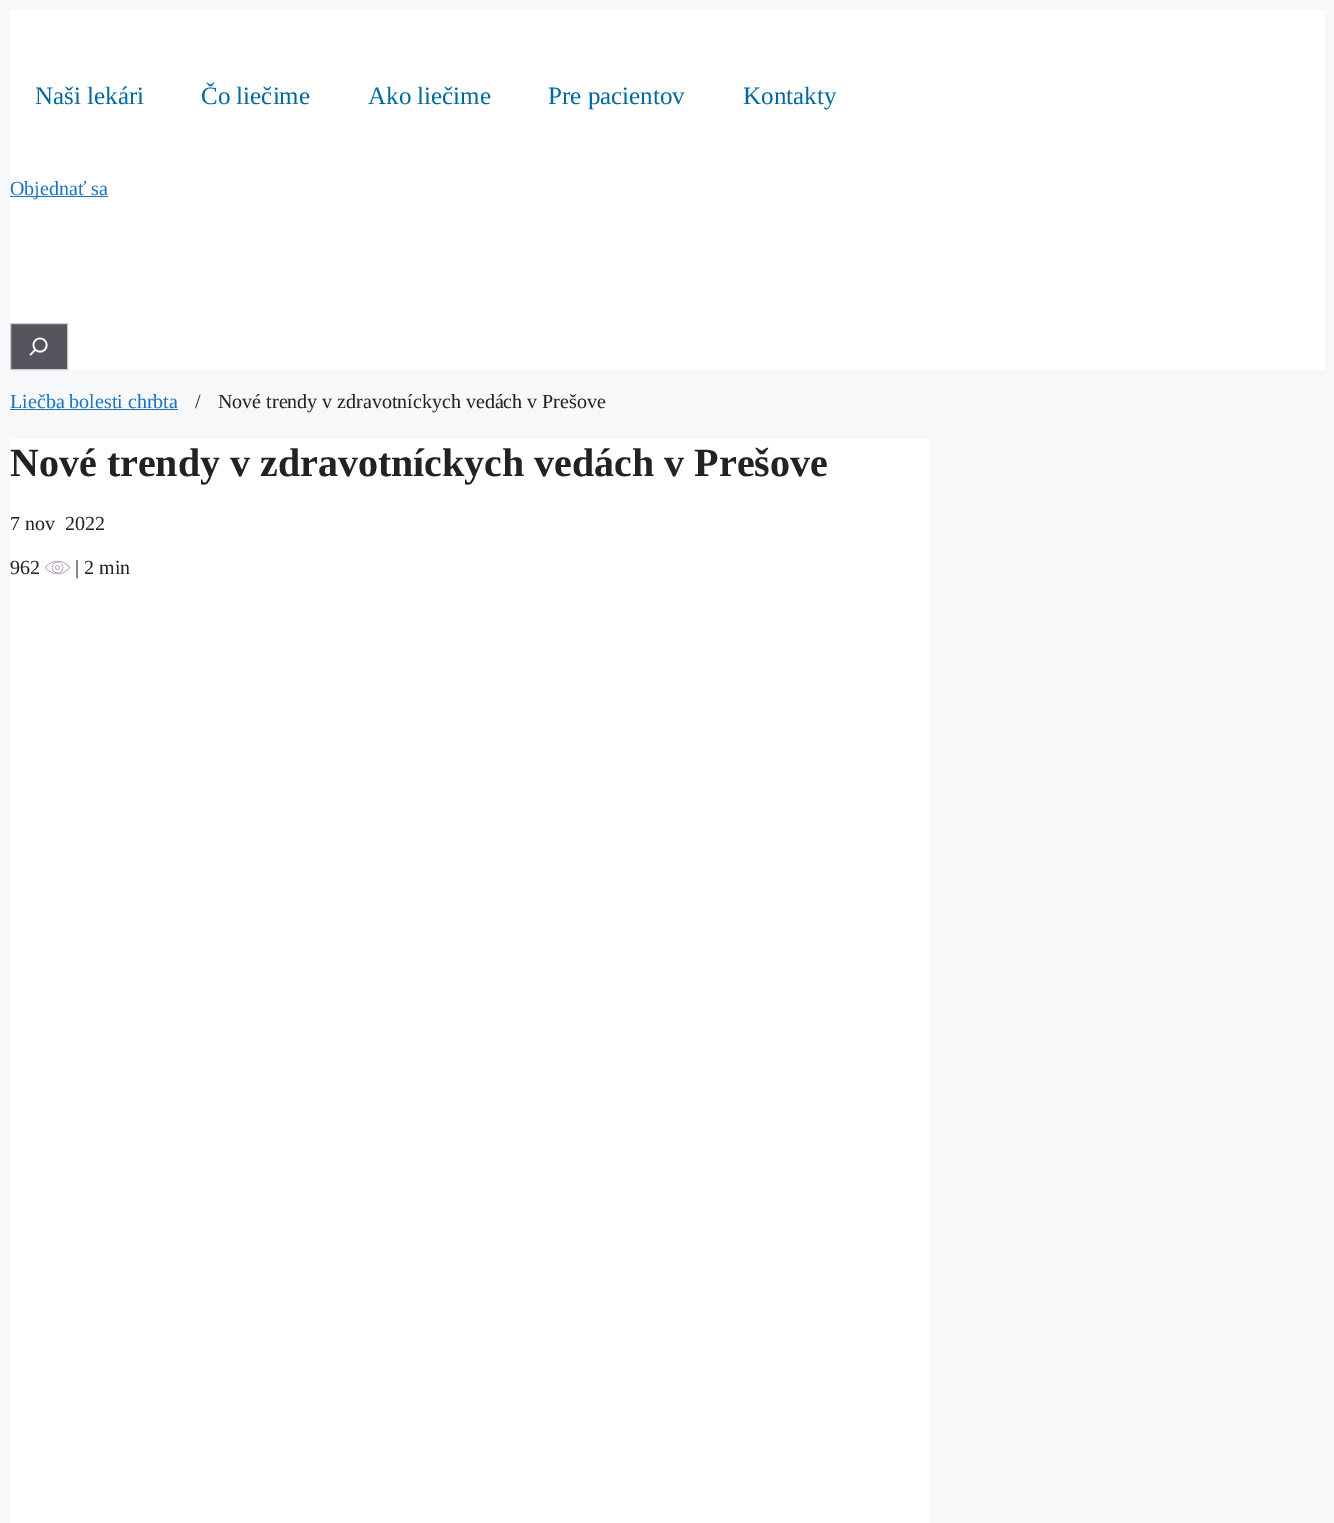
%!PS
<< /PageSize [1334 1523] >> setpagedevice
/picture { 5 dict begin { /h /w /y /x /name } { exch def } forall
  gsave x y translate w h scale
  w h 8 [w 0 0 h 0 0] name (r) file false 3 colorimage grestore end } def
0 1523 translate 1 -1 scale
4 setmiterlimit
0.969 0.973 0.976 setrgbcolor
0 0 1334 1523 rectfill
1 setgray
10 10 1315 360 rectfill
/LiberationSerif-Regular [25 0 0 -25 0 0] selectfont
0 0.412 0.608 setrgbcolor
35 104 moveto (Naši lekári) show
201 104 moveto (Čo liečime) show
368 104 moveto (Ako liečime) show
548 104 moveto (Pre pacientov) show
743 104 moveto (Kontakty) show
0.118 0.451 0.745 setrgbcolor
10 196 98 1 rectfill
/LiberationSerif-Regular [20 0 0 -20 0 0] selectfont
10 195 moveto (Objednať sa) show
0.333 0.333 0.369 setrgbcolor
newpath 10.5 323.5 moveto 67.5 323.5 lineto 67.5 369.5 lineto 10.5 369.5 lineto closepath gsave fill grestore
0.8 setgray
stroke
(img1.rgb) 29 337 19 19 picture
0.118 0.451 0.745 setrgbcolor
10 408 moveto (Liečba bolesti chrbta) show
10 409 168 1 rectfill
0.133 setgray
195 408 moveto (/) show
218 408 moveto (Nové trendy v zdravotníckych vedách v Prešove) show
1 setgray
10 439 920 1084 rectfill
/LiberationSerif-Bold [40 0 0 -40 0 0] selectfont
0.133 setgray
10 476 moveto (Nové trendy v zdravotníckych vedách v Prešove) show
/LiberationSerif-Regular [20 0 0 -20 0 0] selectfont
10 530 moveto (7 nov  2022) show
10 574 moveto (962) show
(img2.rgb) 45 560 25 15 picture
75 574 moveto (| 2 min) show
showpage
